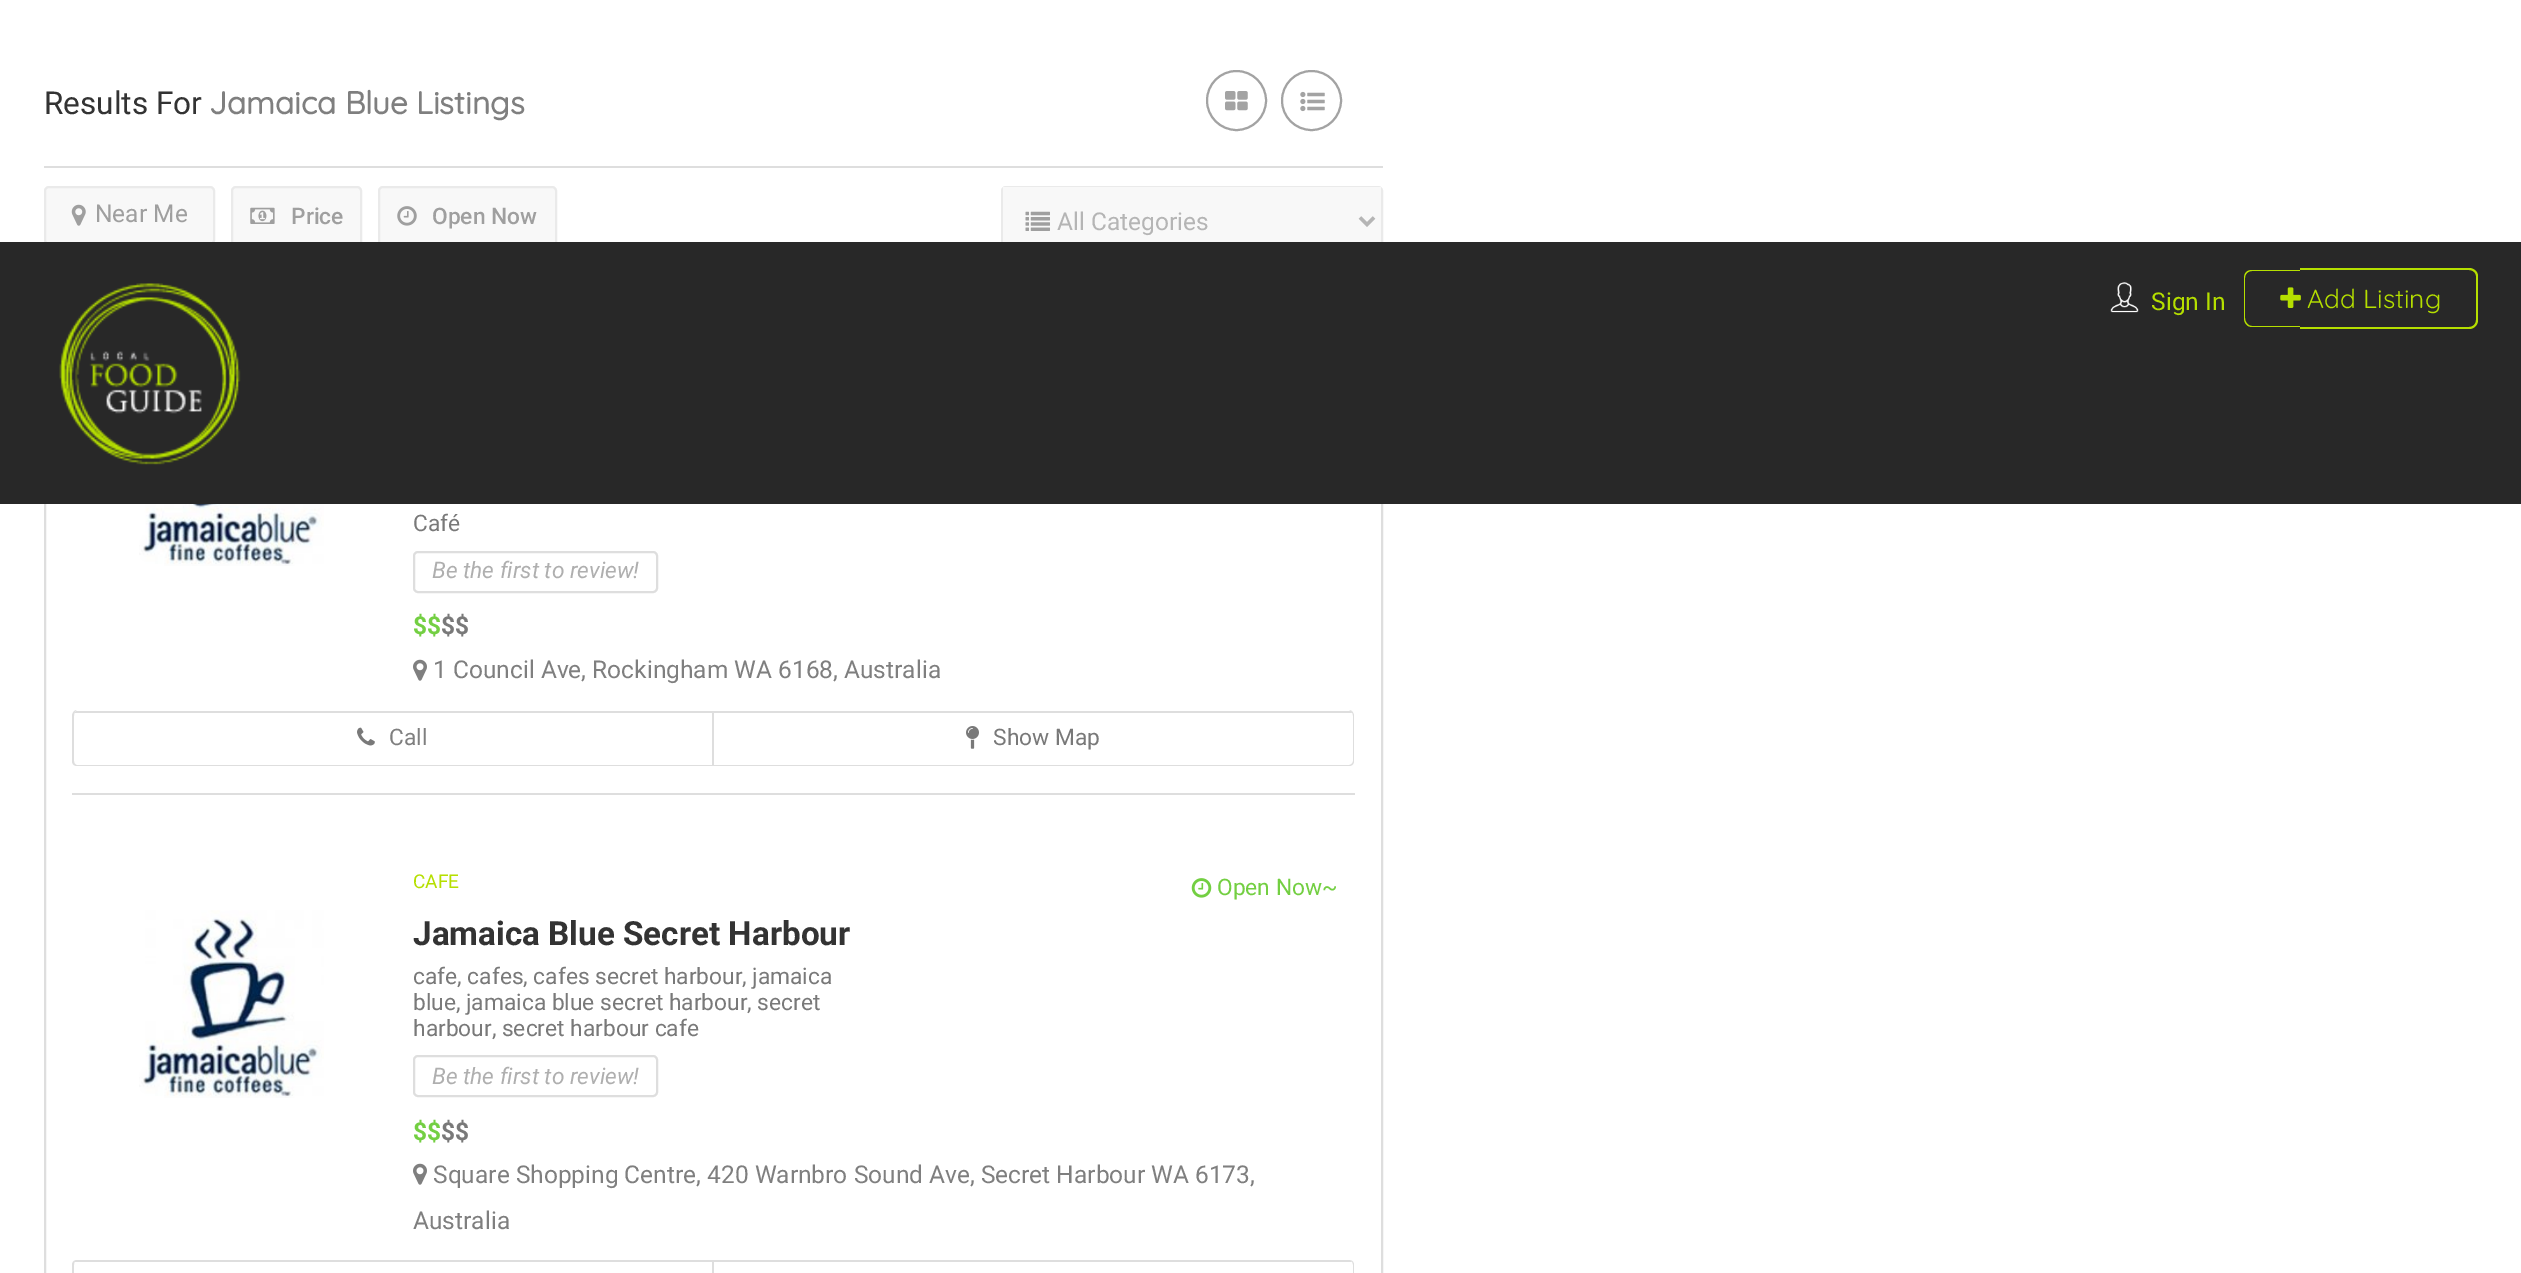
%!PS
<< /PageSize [2521 1273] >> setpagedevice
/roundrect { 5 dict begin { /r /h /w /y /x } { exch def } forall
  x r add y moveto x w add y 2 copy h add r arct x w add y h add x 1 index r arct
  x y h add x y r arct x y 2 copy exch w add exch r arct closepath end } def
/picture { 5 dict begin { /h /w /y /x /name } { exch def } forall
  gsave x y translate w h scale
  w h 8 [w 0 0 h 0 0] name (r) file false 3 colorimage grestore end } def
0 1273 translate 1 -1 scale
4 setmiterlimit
1 setgray
0 0 2521 1273 rectfill
/Roboto-Regular [31.5 0 0 -31.5 0 0] selectfont
0.2 setgray
44 114 moveto (Results For) show
/Quicksand-Bold [31.5 0 0 -31.5 0 0] selectfont
0.498 setgray
209 114 moveto (Jamaica Blue) show
416 114 moveto (Listings) show
0.639 setgray
2 setlinewidth
newpath 1236.5 100.5 29.5 0 360 arc closepath stroke
(img1.rgb) 1225 91 23 20 picture
newpath 1311.5 100.5 29.5 0 360 arc closepath stroke
(img2.rgb) 1300 91 25 21 picture
0.871 setgray
44 166 1339 2 rectfill
0.973 setgray
45 187 169 57 4 roundrect gsave fill grestore
0.918 setgray
stroke
(img3.rgb) 71 204 15 22 picture
/Roboto-Regular [24.5 0 0 -24.5 0 0] selectfont
0.624 setgray
95 222 moveto (Near Me) show
0.973 setgray
232 187 129 59 4 roundrect gsave fill grestore
0.918 setgray
stroke
(img4.rgb) 250 207 25 17 picture
/Roboto-Medium [22.75 0 0 -22.75 0 0] selectfont
0.624 setgray
291 224 moveto (Price) show
0.973 setgray
379 187 177 59 4 roundrect gsave fill grestore
0.918 setgray
stroke
(img5.rgb) 397 206 20 20 picture
0.624 setgray
432 224 moveto (Open Now) show
0.918 setgray
1002 187 380 69 4 roundrect stroke
0.973 setgray
1003 187 378 55 rectfill
(img6.rgb) 1025 211 25 20 picture
0.71 setgray
3.5 setlinewidth
newpath 1360 217.5 moveto 1367 224.5 lineto 1374 217.5 lineto stroke
/Roboto-Regular [24.5 0 0 -24.5 0 0] selectfont
1057 230 moveto (All Categories) show
0.871 setgray
2 setlinewidth
45 314 1337 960 rectstroke
72 793 1283 2 rectfill
(img7.rgb) 139 504 185 62 picture
/Roboto-Regular [22.75 0 0 -22.75 0 0] selectfont
0.475 setgray
413 531 moveto (Café) show
0.871 setgray
414 552 243 40 4 roundrect stroke
/Roboto-Italic [22.75 0 0 -22.75 0 0] selectfont
0.686 setgray
432 578 moveto (Be the first to review!) show
/Roboto-Bold [24.5 0 0 -24.5 0 0] selectfont
0.451 0.812 0.259 setrgbcolor
413 634 moveto ($$) show
0.475 setgray
441 634 moveto ($$) show
(img8.rgb) 413 659 14 22 picture
/Roboto-Regular [24.5 0 0 -24.5 0 0] selectfont
0.498 setgray
433 678 moveto (1 Council Ave, Rockingham WA 6168, Australia) show
0.871 setgray
newpath 77 710 moveto 1349 710 lineto 1352 710 1354 713 1354 716 curveto 1354 761 lineto 1354 764 1352 766 1349 766 curveto 77 766 lineto 74 766 72 764 72 761 curveto 72 716 lineto 72 713 74 710 77 710 curveto closepath 77 710 moveto 1349 710 lineto 1351 710 1353 713 1353 716 curveto 1353 761 lineto 1353 763 1351 765 1349 765 curveto 77 765 lineto 75 765 74 763 74 761 curveto 74 716 lineto 74 713 75 710 77 710 curveto closepath eofill
newpath 74 713 moveto 76 711 lineto 714 711 lineto 714 713 lineto closepath fill
712 711 2 54 rectfill
(img9.rgb) 357 727 18 19 picture
/Roboto-Regular [22.75 0 0 -22.75 0 0] selectfont
0.498 setgray
389 745 moveto (Call) show
0.871 setgray
newpath 714 711 moveto 1351 711 lineto 1352 713 lineto 714 713 lineto closepath fill
(img10.rgb) 966 726 13 23 picture
0.475 setgray
993 745 moveto (Show Map) show
(img11.rgb) 139 910 185 188 picture
/Roboto-Regular [19 0 0 -19 0 0] selectfont
0.71 0.875 0 setrgbcolor
413 888 moveto (CAFE) show
(img12.rgb) 1191 878 21 20 picture
/Roboto-Regular [22.75 0 0 -22.75 0 0] selectfont
0.451 0.812 0.259 setrgbcolor
1217 895 moveto (Open Now~) show
/Roboto-Bold [33.25 0 0 -33.25 0 0] selectfont
0.2 setgray
413 945 moveto (Jamaica Blue Secret Harbour) show
/Roboto-Regular [22.75 0 0 -22.75 0 0] selectfont
0.475 setgray
413 984 moveto (cafe, cafes, cafes secret harbour, jamaica) show
413 1010 moveto (blue, jamaica blue secret harbour, secret) show
413 1036 moveto (harbour, secret harbour cafe) show
0.871 setgray
414 1056 243 40 4 roundrect stroke
/Roboto-Italic [22.75 0 0 -22.75 0 0] selectfont
0.686 setgray
432 1084 moveto (Be the first to review!) show
/Roboto-Bold [24.5 0 0 -24.5 0 0] selectfont
0.451 0.812 0.259 setrgbcolor
413 1140 moveto ($$) show
0.475 setgray
441 1140 moveto ($$) show
(img8.rgb) 413 1163 14 22 picture
/Roboto-Regular [24.5 0 0 -24.5 0 0] selectfont
0.498 setgray
433 1183 moveto (Square Shopping Centre, 420 Warnbro Sound Ave, Secret Harbour WA 6173,) show
413 1229 moveto (Australia) show
0.871 setgray
newpath 77 1260 moveto 1349 1260 lineto 1352 1260 1354 1262 1354 1265 curveto 1354 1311 lineto 1354 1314 1352 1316 1349 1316 curveto 77 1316 lineto 74 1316 72 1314 72 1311 curveto 72 1265 lineto 72 1262 74 1260 77 1260 curveto closepath 77 1260 moveto 1349 1260 lineto 1351 1260 1353 1262 1353 1265 curveto 1353 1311 lineto 1353 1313 1351 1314 1349 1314 curveto 77 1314 lineto 75 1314 74 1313 74 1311 curveto 74 1265 lineto 74 1262 75 1260 77 1260 curveto closepath eofill
newpath 77 1260 moveto 76 1260 75 1261 74 1262 curveto 714 1262 lineto 714 1260 lineto closepath fill
712 1260 2 13 rectfill
newpath 714 1260 moveto 714 1262 lineto 1352 1262 lineto 1351 1261 1350 1260 1349 1260 curveto closepath fill
0.157 setgray
0 242 2521 262 rectfill
(img13.rgb) 59 283 182 182 picture
(img14.rgb) 2110 282 29 31 picture
0.71 0.875 0 setrgbcolor
2151 310 moveto (Sign In) show
newpath 2252 270 moveto 2300 270 lineto 2300 327 lineto 2252 327 lineto 2247 327 2244 323 2244 318 curveto 2244 278 lineto 2244 273 2247 270 2252 270 curveto closepath 2252 271 moveto 2300 271 lineto 2300 326 lineto 2252 326 lineto 2248 326 2245 322 2245 318 curveto 2245 278 lineto 2245 274 2248 271 2252 271 curveto closepath eofill
newpath 2300 268 moveto 2469 268 lineto 2474 268 2478 272 2478 276 curveto 2478 320 lineto 2478 325 2474 329 2469 329 curveto 2300 329 lineto closepath 2300 270 moveto 2469 270 lineto 2473 270 2476 273 2476 276 curveto 2476 320 lineto 2476 324 2473 327 2469 327 curveto 2300 327 lineto closepath eofill
(img15.rgb) 2280 287 21 21 picture
/Quicksand-Light [26.25 0 0 -26.25 0 0] selectfont
2307 308 moveto (Add Listing) show
showpage
